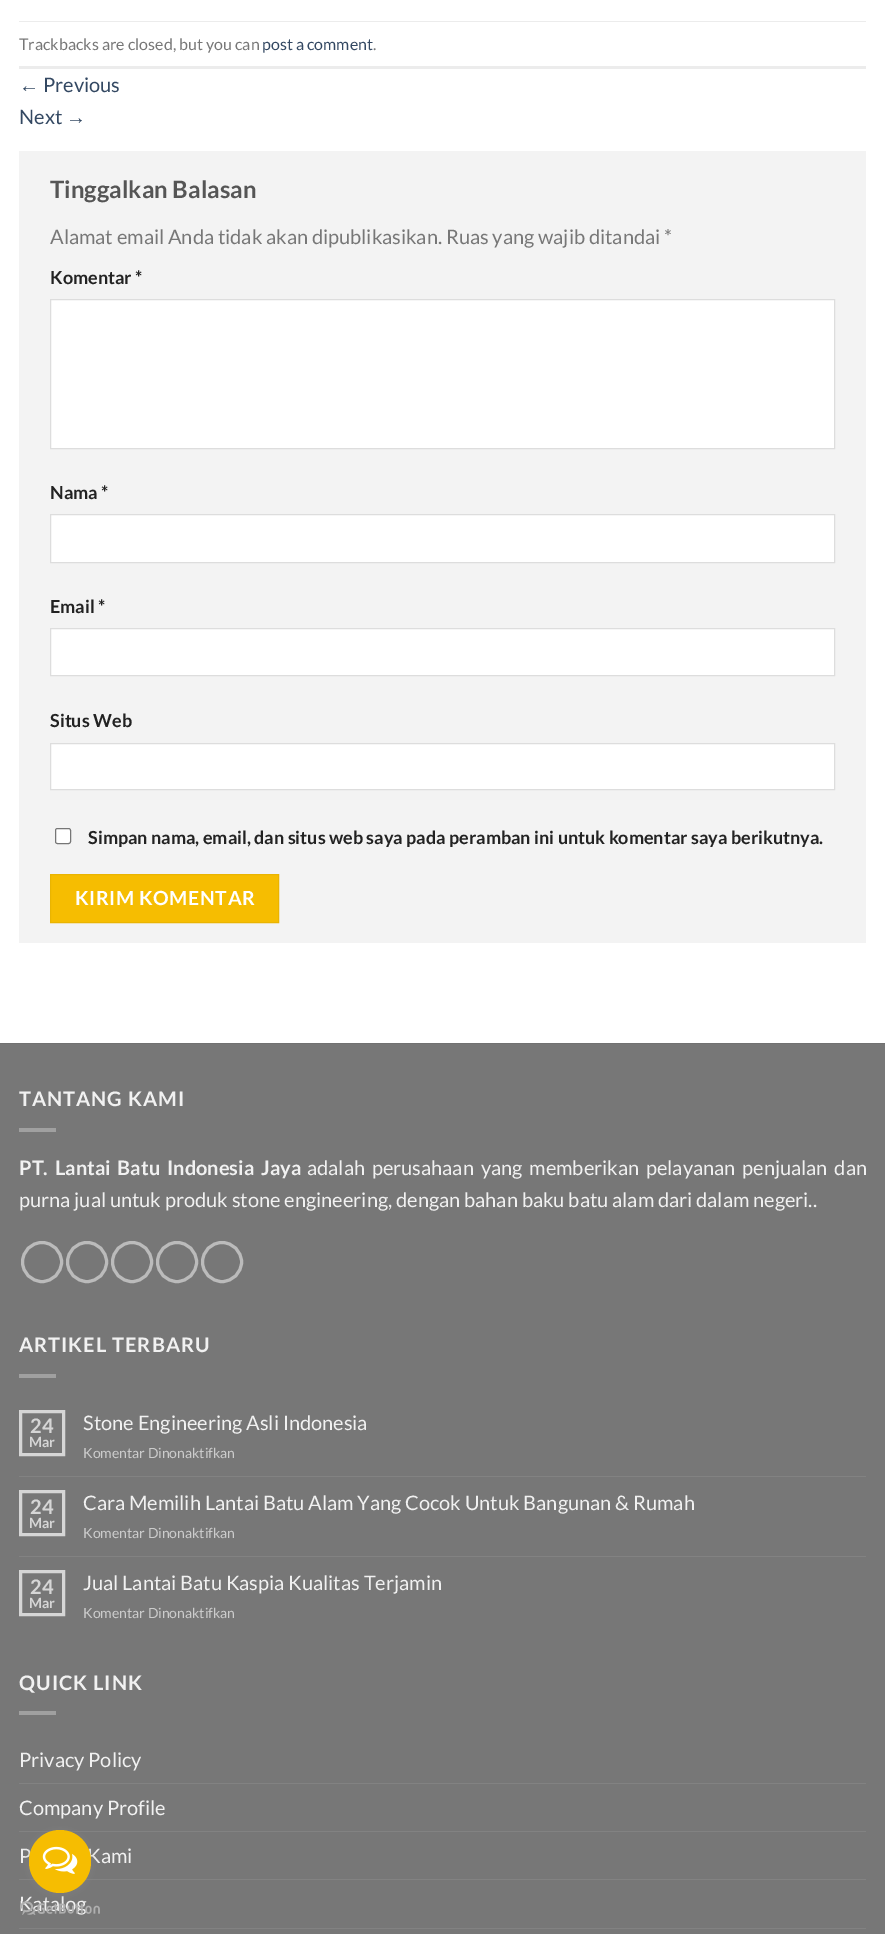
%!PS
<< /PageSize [885 1934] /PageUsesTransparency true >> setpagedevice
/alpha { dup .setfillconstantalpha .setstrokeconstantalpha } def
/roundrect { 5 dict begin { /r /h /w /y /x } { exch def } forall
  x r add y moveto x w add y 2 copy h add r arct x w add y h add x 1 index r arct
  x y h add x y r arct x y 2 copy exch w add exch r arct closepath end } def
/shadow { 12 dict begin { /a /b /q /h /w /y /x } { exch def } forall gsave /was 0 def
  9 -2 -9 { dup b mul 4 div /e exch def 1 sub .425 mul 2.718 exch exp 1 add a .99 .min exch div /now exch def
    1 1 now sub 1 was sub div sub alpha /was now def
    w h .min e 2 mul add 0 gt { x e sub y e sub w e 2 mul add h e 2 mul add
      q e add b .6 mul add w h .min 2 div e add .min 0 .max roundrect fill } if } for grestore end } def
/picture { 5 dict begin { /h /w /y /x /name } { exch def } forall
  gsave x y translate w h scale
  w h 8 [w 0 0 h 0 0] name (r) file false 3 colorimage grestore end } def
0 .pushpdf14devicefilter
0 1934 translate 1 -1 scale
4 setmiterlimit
1 setgray
0 0 885 1934 rectfill
0.925 setgray
19 21 847 1 rectfill
19 66 847 3 rectfill
/Lato-Regular [16 0 0 -16 0 0] selectfont
0.467 setgray
19 50 moveto (Trackbacks are closed, but you can) show
0.2 0.282 0.384 setrgbcolor
262 50 moveto (post a comment) show
0.467 setgray
373 50 moveto (.) show
/LiberationSans-Regular [20 0 0 -20 0 0] selectfont
0.2 0.282 0.384 setrgbcolor
19 92 moveto (←) show
/Lato-Regular [20 0 0 -20 0 0] selectfont
43 92 moveto (Previous) show
19 124 moveto (Next) show
/LiberationSans-Regular [20 0 0 -20 0 0] selectfont
66 124 moveto (→) show
0.953 setgray
19 151 847 792 rectfill
/Lato-Bold [24 0 0 -24 0 0] selectfont
0.333 setgray
50 198 moveto (Tinggalkan Balasan) show
/Lato-Regular [20 0 0 -20 0 0] selectfont
0.467 setgray
50 244 moveto (Alamat email Anda tidak akan dipublikasikan. Ruas yang wajib ditandai *) show
/Lato-Bold [18 0 0 -18 0 0] selectfont
0.133 setgray
50 284 moveto (Komentar *) show
1 setgray
newpath 50.5 299.5 moveto 834.5 299.5 lineto 834.5 448.5 lineto 50.5 448.5 lineto closepath gsave fill grestore
0.867 setgray
stroke
0.133 setgray
50 499 moveto (Nama *) show
1 setgray
newpath 50.5 514.5 moveto 834.5 514.5 lineto 834.5 562.5 lineto 50.5 562.5 lineto closepath gsave fill grestore
0.867 setgray
stroke
0.133 setgray
50 613 moveto (Email *) show
1 setgray
newpath 50.5 628.5 moveto 834.5 628.5 lineto 834.5 675.5 lineto 50.5 675.5 lineto closepath gsave fill grestore
0.867 setgray
stroke
0.133 setgray
50 727 moveto (Situs Web) show
1 setgray
newpath 50.5 743.5 moveto 834.5 743.5 lineto 834.5 789.5 lineto 50.5 789.5 lineto closepath gsave fill grestore
0.867 setgray
stroke
1 setgray
55.5 828.5 15 15 2 roundrect gsave fill grestore
0.463 setgray
stroke
0.133 setgray
88 844 moveto (Simpan nama, email, dan situs web saya pada peramban ini untuk komentar saya berikutnya.) show
0.965 0.741 0.004 setrgbcolor
newpath 50.5 874.5 moveto 278.5 874.5 lineto 278.5 922.5 lineto 50.5 922.5 lineto closepath gsave fill grestore
0.918 0.706 0.004 setrgbcolor
stroke
/Lato-Bold [19.5 0 0 -19.5 0 0] selectfont
1 setgray
75 905 moveto 0.6 0 (KIRIM KOMENTAR) ashow
0.467 setgray
0 1044 885 890 rectfill
0.443 setgray
0 1043 885 1 rectfill
/Lato-Bold [20 0 0 -20 0 0] selectfont
0.945 setgray
19 1106 moveto 1 0 (TANTANG KAMI) ashow
0.627 setgray
19 1128 37 4 rectfill
0.945 setgray
19 1175 moveto 3 0 32 (PT. Lantai Batu Indonesia Jaya) widthshow
/Lato-Regular [20 0 0 -20 0 0] selectfont
307 1175 moveto 3 0 32 (adalah perusahaan yang memberikan pelayanan penjualan dan) widthshow
19 1207 moveto (purna jual untuk produk stone engineering, dengan bahan baku batu alam dari dalam negeri..) show
0.733 setgray
3 setlinewidth
newpath 42 1262 19.5 0 360 arc closepath stroke
newpath 87 1262 19.5 0 360 arc closepath stroke
newpath 132 1262 19.5 0 360 arc closepath stroke
newpath 177 1262 19.5 0 360 arc closepath stroke
newpath 222 1262 19.5 0 360 arc closepath stroke
/Lato-Bold [20 0 0 -20 0 0] selectfont
0.945 setgray
19 1352 moveto 1 0 (ARTIKEL TERBARU) ashow
0.627 setgray
19 1374 37 4 rectfill
0.839 setgray
20.5 1411.5 43 43 rectstroke
30 1433 moveto (24) show
/Lato-Bold [14 0 0 -14 0 0] selectfont
29 1447 moveto (Mar) show
/Lato-Regular [20 0 0 -20 0 0] selectfont
0.945 setgray
83 1430 moveto (Stone Engineering Asli Indonesia) show
/Lato-Regular [14 0 0 -14 0 0] selectfont
0.8 setgray
83 1458 moveto (Komentar Dinonaktifkan) show
0.51 setgray
19 1476 847 1 rectfill
0.839 setgray
20.5 1491.5 43 43 rectstroke
/Lato-Bold [20 0 0 -20 0 0] selectfont
30 1514 moveto (24) show
/Lato-Bold [14 0 0 -14 0 0] selectfont
29 1528 moveto (Mar) show
/Lato-Regular [20 0 0 -20 0 0] selectfont
0.945 setgray
83 1510 moveto (Cara Memilih Lantai Batu Alam Yang Cocok Untuk Bangunan & Rumah) show
/Lato-Regular [14 0 0 -14 0 0] selectfont
0.8 setgray
83 1538 moveto (Komentar Dinonaktifkan) show
0.51 setgray
19 1556 847 1 rectfill
0.839 setgray
20.5 1571.5 43 43 rectstroke
/Lato-Bold [20 0 0 -20 0 0] selectfont
30 1594 moveto (24) show
/Lato-Bold [14 0 0 -14 0 0] selectfont
29 1608 moveto (Mar) show
/Lato-Regular [20 0 0 -20 0 0] selectfont
0.945 setgray
83 1590 moveto (Jual Lantai Batu Kaspia Kualitas Terjamin) show
/Lato-Regular [14 0 0 -14 0 0] selectfont
0.8 setgray
83 1618 moveto (Komentar Dinonaktifkan) show
/Lato-Bold [20 0 0 -20 0 0] selectfont
0.945 setgray
19 1690 moveto 1 0 (QUICK LINK) ashow
0.627 setgray
19 1711 37 4 rectfill
/Lato-Regular [20 0 0 -20 0 0] selectfont
0.945 setgray
19 1767 moveto (Privacy Policy) show
0.51 setgray
19 1783 847 1 rectfill
0.945 setgray
19 1815 moveto (Company Profile) show
0.51 setgray
19 1831 847 1 rectfill
0.945 setgray
19 1863 moveto (P) show
87 1863 moveto (Kami) show
0.51 setgray
19 1879 847 1 rectfill
0.945 setgray
19 1911 moveto (Katalog) show
0.51 setgray
19 1928 847 1 rectfill
(img2.rgb) 20 1901 80 14 picture
0.533 setgray
29 1831 62 63 31 4.5 0.4 shadow
0.965 0.741 0.004 setrgbcolor
29 1830 62 63 31 roundrect fill
(img1.rgb) 42 1846 36 28 picture
.poppdf14devicefilter showpage
